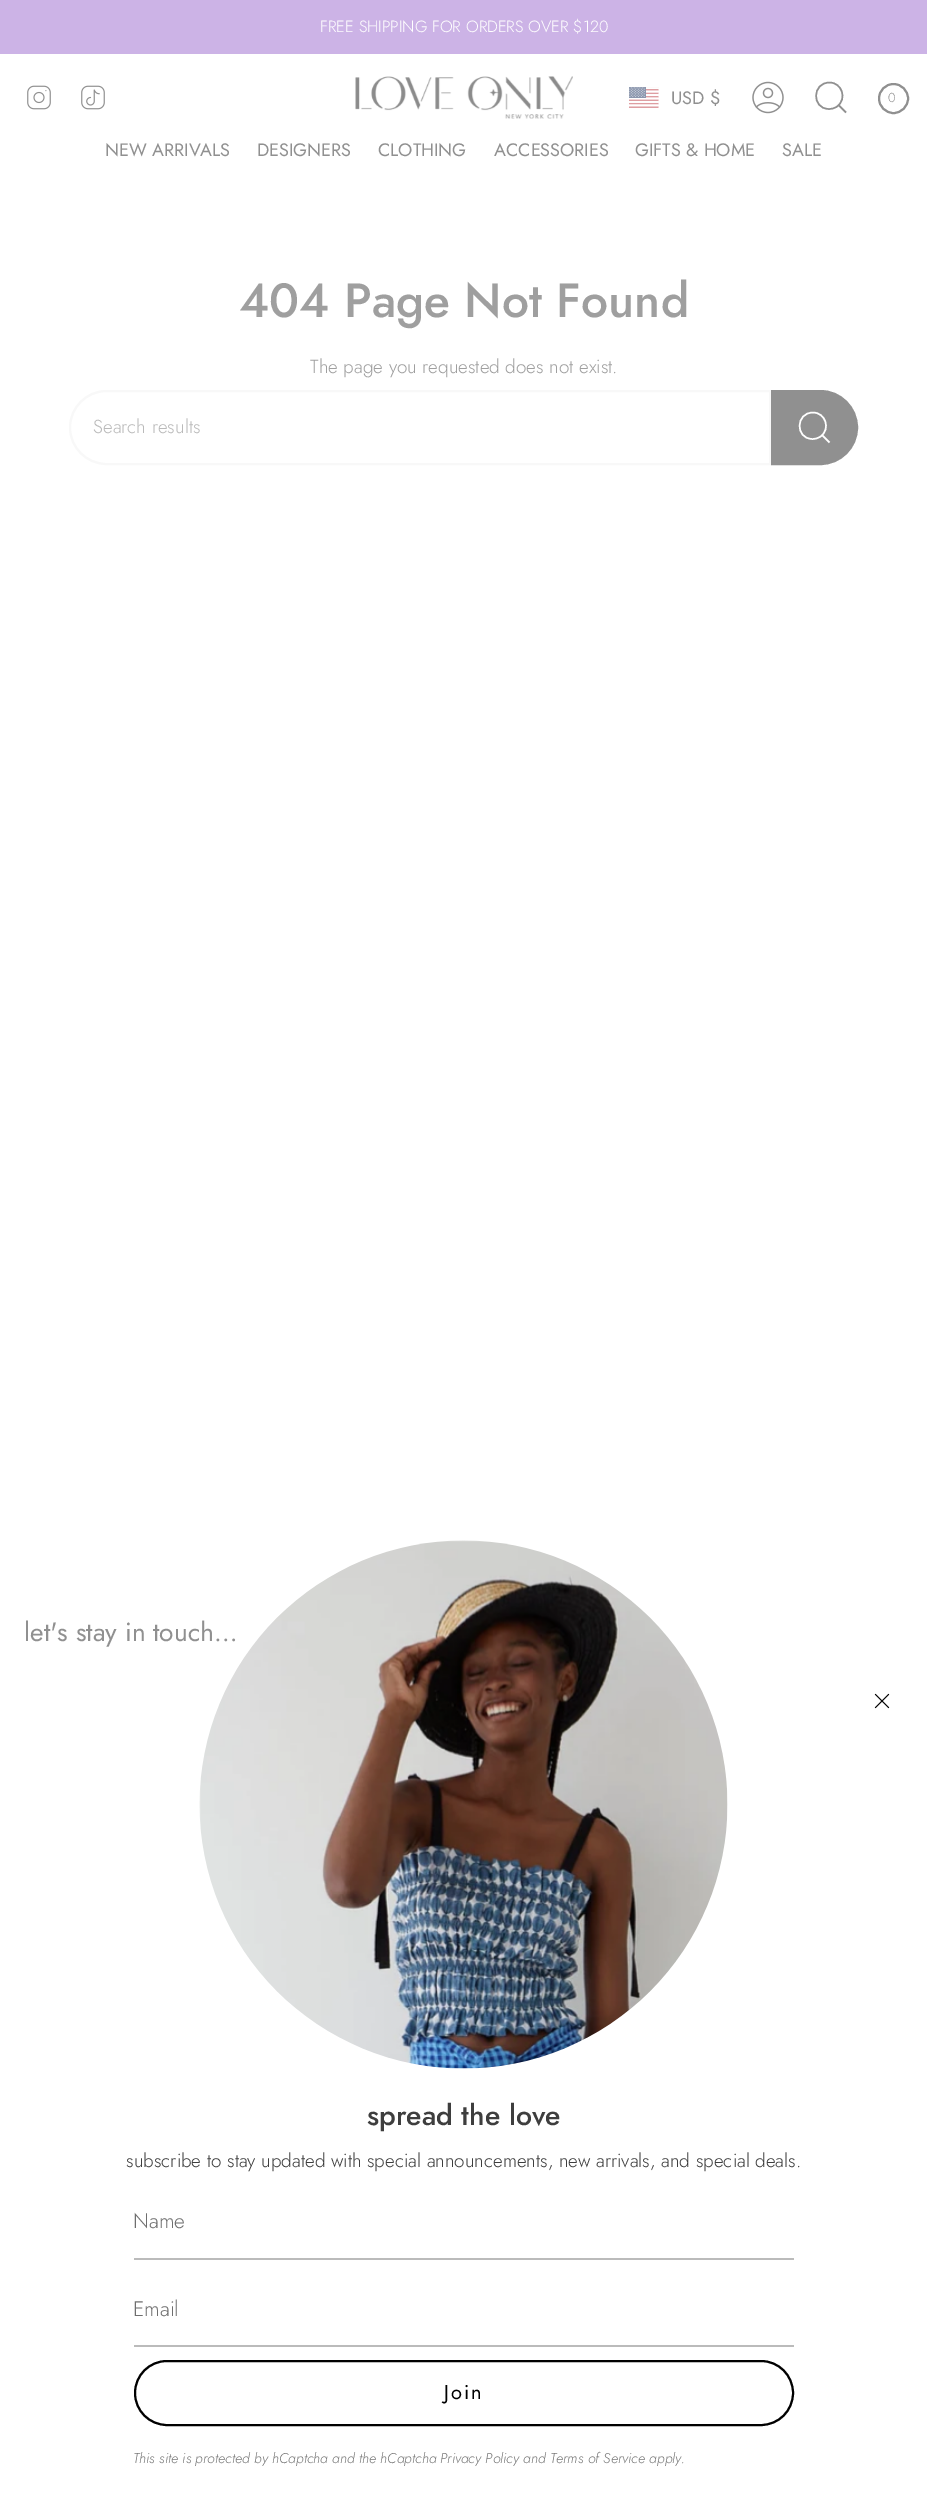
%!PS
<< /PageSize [927 2506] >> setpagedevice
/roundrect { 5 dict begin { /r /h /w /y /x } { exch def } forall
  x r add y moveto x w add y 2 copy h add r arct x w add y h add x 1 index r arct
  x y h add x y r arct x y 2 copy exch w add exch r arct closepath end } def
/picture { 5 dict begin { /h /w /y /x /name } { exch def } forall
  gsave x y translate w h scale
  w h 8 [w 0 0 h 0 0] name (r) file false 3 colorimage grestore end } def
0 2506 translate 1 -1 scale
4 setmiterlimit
1 setgray
0 0 927 2506 rectfill
0.8 0.702 0.902 setrgbcolor
0 0 927 54 rectfill
/Jost-Light [16.25 0 0 -16.25 0 0] selectfont
1 setgray
320 32 moveto (FREE SHIPPING FOR ORDERS OVER $120) show
(img1.rgb) 27 85 24 25 picture
(img2.rgb) 81 85 24 25 picture
(img3.rgb) 355 76 218 43 picture
(img4.rgb) 629 87 30 21 picture
/Jost-Regular [18 0 0 -18 0 0] selectfont
0.565 setgray
671 104 moveto (USD $) show
(img5.rgb) 752 81 32 33 picture
1.5 setlinewidth
newpath 829.5 82.5 moveto 842 82.5 847.5 99 837 106.5 curveto 834.5 108.5 831.5 109 828.5 109 curveto 811.5 108.5 812 82.5 829.5 82.5 curveto closepath 838.5 105 moveto 846 112.5 lineto stroke
2 setlinewidth
newpath 893.5 98.5 14.5 0 360 arc closepath stroke
/Jost-Light [13 0 0 -13 0 0] selectfont
888 102 moveto (0) show
/Jost-Regular [18 0 0 -18 0 0] selectfont
105 156 moveto (NEW ARRIVALS) show
257 156 moveto (DESIGNERS) show
378 156 moveto (CLOTHING) show
494 156 moveto (ACCESSORIES) show
635 156 moveto (GIFTS & HOME) show
782 156 moveto (SALE) show
/Jost-Medium [48 0 0 -48 0 0] selectfont
0.624 setgray
239 317 moveto (404 Page Not Found) show
/Jost-Light [18.9 0 0 -18.9 0 0] selectfont
310 373 moveto (The page you requested does not exist.) show
0.973 setgray
newpath 106.5 391 moveto 770 391 lineto 770 464 lineto 106.5 464 lineto 86.5 464 70 447.5 70 427.5 curveto 70 407.5 86.5 391 106.5 391 curveto closepath stroke
0.729 setgray
93 433 moveto (Search results) show
0.565 setgray
newpath 772 391 moveto 820.5 391 lineto 840.5 391 857 407.5 857 427.5 curveto 857 447.5 840.5 464 820.5 464 curveto 772 464 lineto closepath gsave fill grestore
stroke
1 setgray
1.5 setlinewidth
newpath 813 412.5 moveto 825.5 412.5 831 429 820.5 436.5 curveto 818 438.5 815 439 812 439 curveto 795 438.5 795.5 412.5 813 412.5 curveto closepath 822 435 moveto 829.5 442.5 lineto stroke
(img6.rgb) 874 1693 16 16 picture
/Jost-Regular [26.25 0 0 -26.25 0 0] selectfont
0.565 setgray
24 1641 moveto (let's stay in touch...) show
(img7.rgb) 199 1540 529 529 picture
/Jost-Medium [28.5 0 0 -28.5 0 0] selectfont
0.243 setgray
367 2125 moveto (spread the love) show
/Jost-Light [18.9 0 0 -18.9 0 0] selectfont
126 2167 moveto (subscribe to stay updated with special announcements, new arrivals, and special deals.) show
0.733 setgray
134 2258 660 2 rectfill
/Jost-Light [21 0 0 -21 0 0] selectfont
0.431 setgray
133 2228 moveto (Name) show
0.733 setgray
134 2345 660 2 rectfill
0.431 setgray
133 2316 moveto (Email) show
0 setgray
2 setlinewidth
135 2361 658 64 32 roundrect stroke
/Jost-Regular [20 0 0 -20 0 0] selectfont
444 2399 moveto 2 0 (Join) ashow
/Jost-LightItalic [14.2 0 0 -14.2 0 0] selectfont
0.471 setgray
133 2463 moveto (This site is protected by hCaptcha and the hCaptcha) show
440 2463 moveto (Privacy Policy and Terms of Service apply.) show
showpage
